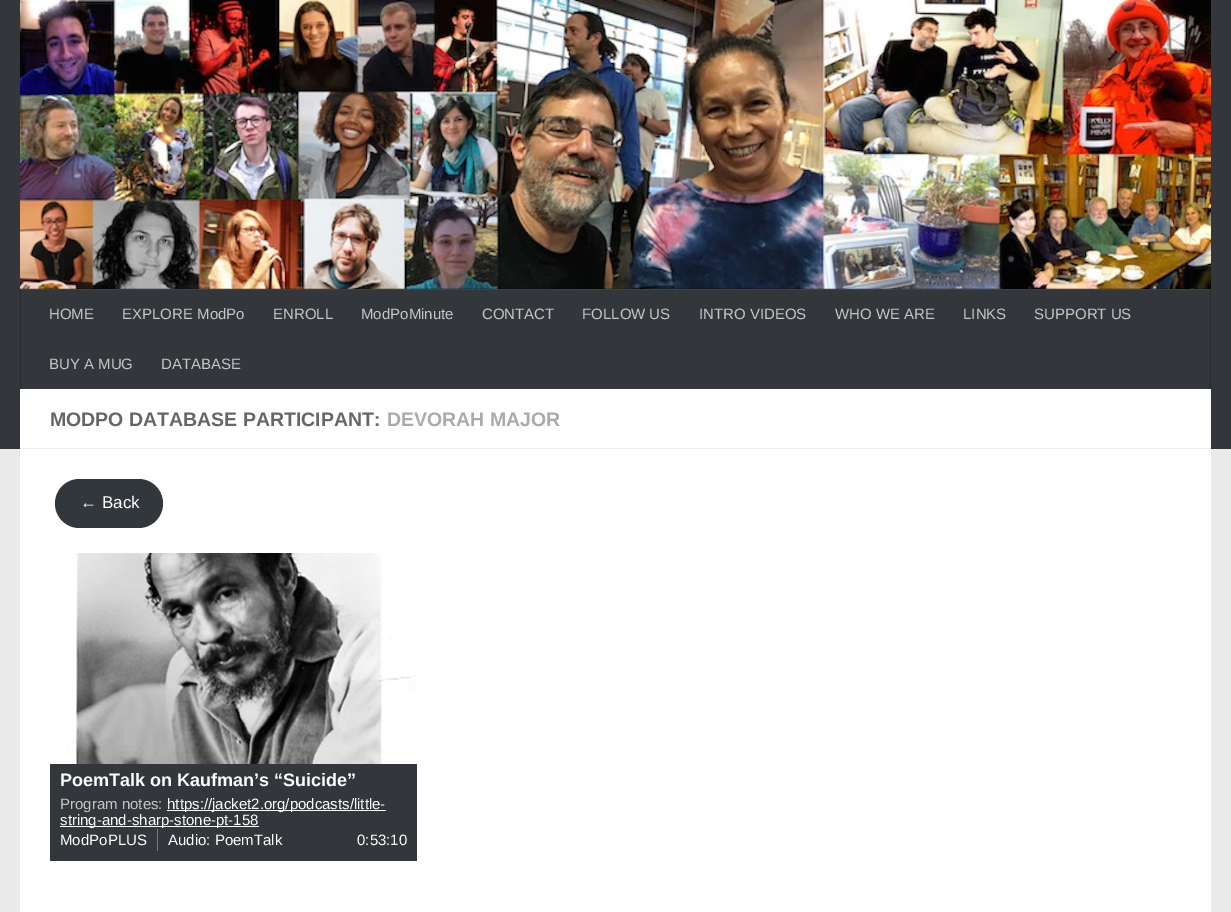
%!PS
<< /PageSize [1231 912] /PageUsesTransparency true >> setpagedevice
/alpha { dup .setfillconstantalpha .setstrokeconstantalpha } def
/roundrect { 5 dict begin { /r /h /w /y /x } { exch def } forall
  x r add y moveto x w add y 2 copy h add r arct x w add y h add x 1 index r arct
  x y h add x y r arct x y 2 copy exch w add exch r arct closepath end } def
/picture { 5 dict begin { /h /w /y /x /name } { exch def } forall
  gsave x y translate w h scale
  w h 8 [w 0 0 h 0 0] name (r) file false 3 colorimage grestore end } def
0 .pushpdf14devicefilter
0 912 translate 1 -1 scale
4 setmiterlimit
0.918 setgray
0 0 1231 912 rectfill
0.2 0.212 0.231 setrgbcolor
0 0 1231 449 rectfill
0.239 0.251 0.271 setrgbcolor
20 289 1191 1 rectfill
(img1.rgb) 20 0 1191 289 picture
0.2 alpha
0 setgray
20 288 1191 1 rectfill
1 alpha
0.161 0.169 0.184 setrgbcolor
1210 289 1 100 rectfill
0.204 0.212 0.224 setrgbcolor
1210 289 1 1 rectfill
0.161 0.169 0.184 setrgbcolor
20 289 1 100 rectfill
0.204 0.212 0.224 setrgbcolor
20 289 1 1 rectfill
/LiberationSans-Regular [15 0 0 -15 0 0] selectfont
0.776 setgray
49 319 moveto (HOME) show
122 319 moveto (EXPLORE ModPo) show
273 319 moveto (ENROLL) show
361 319 moveto (ModPoMinute) show
482 319 moveto (CONTACT) show
582 319 moveto (FOLLOW US) show
699 319 moveto (INTRO VIDEOS) show
835 319 moveto (WHO WE ARE) show
963 319 moveto (LINKS) show
1034 319 moveto (SUPPORT US) show
49 369 moveto (BUY A MUG) show
161 369 moveto (DATABASE) show
1 setgray
20 389 1191 523 rectfill
0.933 setgray
20 448 1191 1 rectfill
/LiberationSans-Bold [19.5 0 0 -19.5 0 0] selectfont
0.4 setgray
50 426 moveto (MODPO DATABASE PARTICIPANT:) show
0.667 setgray
387 426 moveto (DEVORAH MAJOR) show
0.196 0.216 0.235 setrgbcolor
55 479 108 49 24.5 roundrect fill
/LiberationSans-Regular [17 0 0 -17 0 0] selectfont
1 setgray
80 508 moveto (← Back) show
0.2 0.212 0.231 setrgbcolor
50 764 367 97 rectfill
(img2.rgb) 50 553 367 211 picture
/LiberationSans-Bold [18 0 0 -18 0 0] selectfont
1 setgray
60 786 moveto (PoemTalk on Kaufman’s “Suicide”) show
/LiberationSans-Regular [15 0 0 -15 0 0] selectfont
0.776 setgray
60 809 moveto (Program notes:) show
1 setgray
167 810 219 1 rectfill
167 809 moveto (https://jacket2.org/podcasts/little-) show
60 826 199 1 rectfill
60 825 moveto (string-and-sharp-stone-pt-158) show
0.482 setgray
157 829 1 22 rectfill
1 setgray
60 845 moveto (ModPoPLUS) show
168 845 moveto (Audio: PoemTalk) show
357 845 moveto (0:53:10) show
.poppdf14devicefilter showpage
